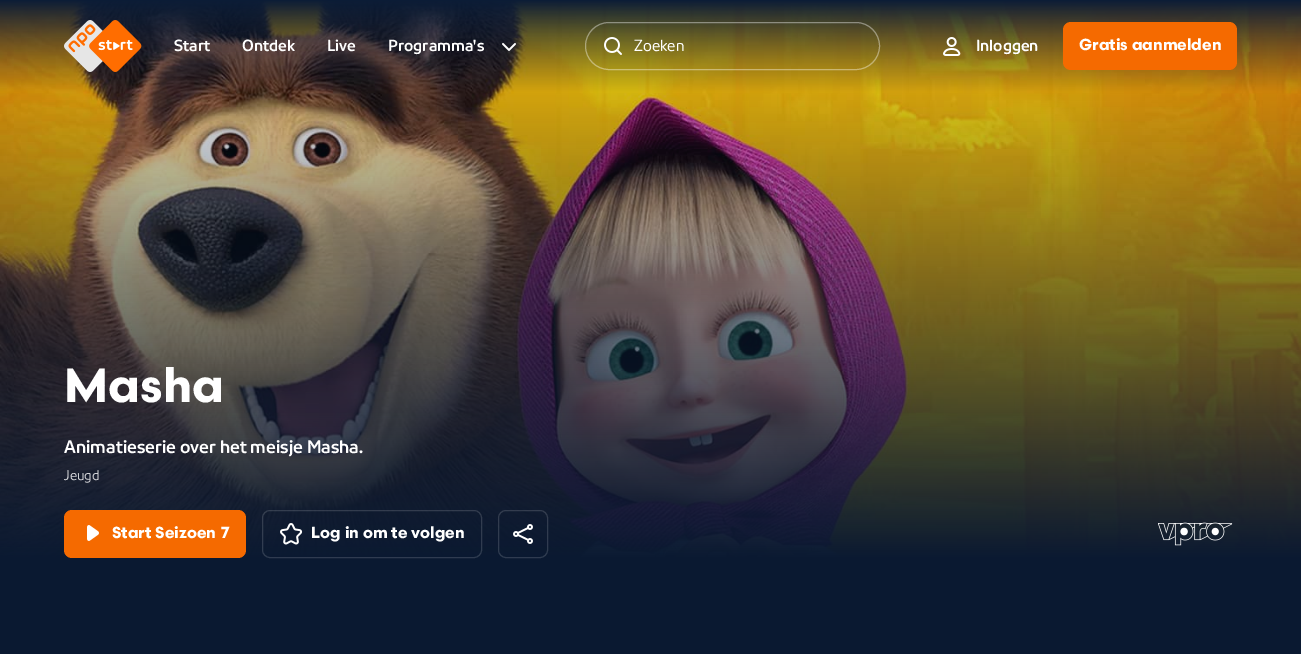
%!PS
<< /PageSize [1301 654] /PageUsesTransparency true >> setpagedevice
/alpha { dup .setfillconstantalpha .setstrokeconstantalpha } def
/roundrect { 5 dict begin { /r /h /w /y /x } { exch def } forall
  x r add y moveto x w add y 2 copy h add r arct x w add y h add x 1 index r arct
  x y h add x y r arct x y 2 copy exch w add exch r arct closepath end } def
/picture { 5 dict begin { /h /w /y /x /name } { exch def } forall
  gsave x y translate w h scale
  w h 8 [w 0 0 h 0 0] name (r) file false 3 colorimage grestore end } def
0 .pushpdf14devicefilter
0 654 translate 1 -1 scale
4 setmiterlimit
0.039 0.098 0.192 setrgbcolor
0 0 1301 654 rectfill
(img5.rgb) 0 0 1301 558 picture
(img1.rgb) 64 20 78 52 picture
/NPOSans-Bold [16 0 0 -16 0 0] selectfont
1 setgray
174 51 moveto (Start) show
242 51 moveto (Ontdek) show
327 51 moveto (Live) show
388 51 moveto (Programma's) show
(img2.rgb) 502 43 14 8 picture
0.4 alpha
585.5 22.5 294 47 23.5 roundrect stroke
1 alpha
(img3.rgb) 604 37 18 18 picture
/NPOSans-Regular [16 0 0 -16 0 0] selectfont
634 51 moveto (Zoeken) show
(img4.rgb) 943 37 18 19 picture
/NPOSans-Bold [16 0 0 -16 0 0] selectfont
976 51 moveto (Inloggen) show
0.961 0.416 0 setrgbcolor
1063 22 174 48 8 roundrect fill
/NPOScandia-Bold [16 0 0 -16 0 0] selectfont
1 setgray
1079 50 moveto (Gratis aanmelden) show
/NPOScandia-Bold [48 0 0 -48 0 0] selectfont
64 402 moveto (Masha) show
/NPOSans-Bold [18 0 0 -18 0 0] selectfont
64 453 moveto (Animatieserie over het meisje Masha.) show
/NPOSans-Regular [14 0 0 -14 0 0] selectfont
0.82 0.824 0.839 setrgbcolor
64 480 moveto (Jeugd) show
0.961 0.416 0 setrgbcolor
64 510 182 48 8 roundrect fill
(img6.rgb) 87 525 12 16 picture
/NPOScandia-Bold [16 0 0 -16 0 0] selectfont
1 setgray
112 538 moveto (Start Seizoen 7) show
0.15 alpha
262.5 510.5 219 47 7.5 roundrect stroke
1 alpha
(img7.rgb) 280 523 23 22 picture
311 538 moveto (Log in om te volgen) show
0.15 alpha
498.5 510.5 49 47 7.5 roundrect stroke
1 alpha
(img8.rgb) 513 524 20 20 picture
(img9.rgb) 1158 522 75 24 picture
.poppdf14devicefilter showpage
